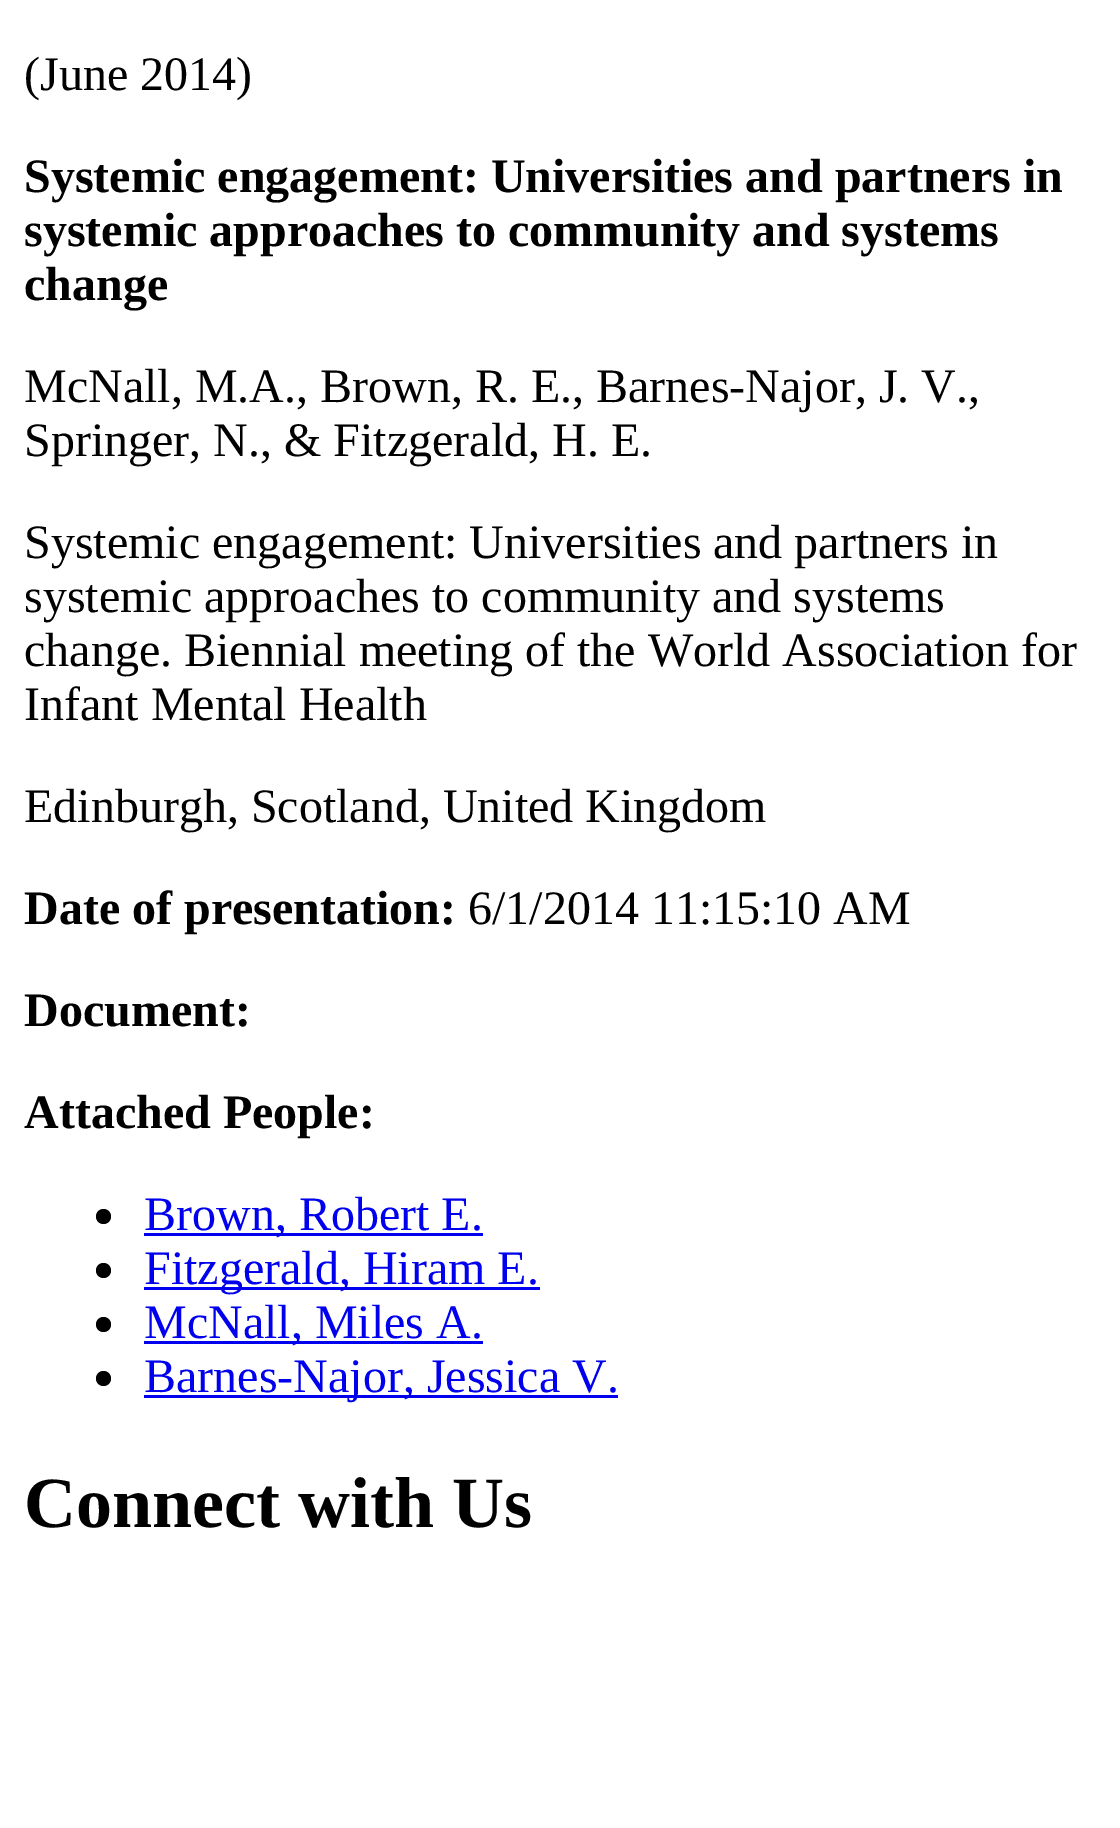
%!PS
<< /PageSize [1120 1828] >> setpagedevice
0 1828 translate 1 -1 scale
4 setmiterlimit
1 setgray
0 0 1120 1828 rectfill
/LiberationSerif-Regular [48 0 0 -48 0 0] selectfont
0 setgray
24 90 moveto (\(June 2014\)) show
/LiberationSerif-Bold [48 0 0 -48 0 0] selectfont
24 192 moveto (Systemic engagement: Universities and partners in) show
24 246 moveto (systemic approaches to community and systems) show
24 300 moveto (change) show
/LiberationSerif-Regular [48 0 0 -48 0 0] selectfont
24 402 moveto (McNall, M.A., Brown, R. E., Barnes-Najor, J. V.,) show
24 456 moveto (Springer, N., & Fitzgerald, H. E.) show
24 558 moveto (Systemic engagement: Universities and partners in) show
24 612 moveto (systemic approaches to community and systems) show
24 666 moveto (change. Biennial meeting of the World Association for) show
24 720 moveto (Infant Mental Health) show
24 822 moveto (Edinburgh, Scotland, United Kingdom) show
/LiberationSerif-Bold [48 0 0 -48 0 0] selectfont
24 924 moveto (Date of presentation:) show
/LiberationSerif-Regular [48 0 0 -48 0 0] selectfont
468 924 moveto (6/1/2014 11:15:10 AM) show
/LiberationSerif-Bold [48 0 0 -48 0 0] selectfont
24 1026 moveto (Document:) show
24 1128 moveto (Attached People:) show
newpath 103.5 1216.5 7.5 0 360 arc closepath fill
0 0 0.933 setrgbcolor
144 1233 339 3 rectfill
/LiberationSerif-Regular [48 0 0 -48 0 0] selectfont
144 1230 moveto (Brown, Robert E.) show
0 setgray
newpath 103.5 1270.5 7.5 0 360 arc closepath fill
0 0 0.933 setrgbcolor
144 1287 396 3 rectfill
144 1284 moveto (Fitzgerald, Hiram E.) show
0 setgray
newpath 103.5 1324.5 7.5 0 360 arc closepath fill
0 0 0.933 setrgbcolor
144 1341 339 3 rectfill
144 1338 moveto (McNall, Miles A.) show
0 setgray
newpath 103.5 1378.5 7.5 0 360 arc closepath fill
0 0 0.933 setrgbcolor
144 1395 474 3 rectfill
144 1392 moveto (Barnes-Najor, Jessica V.) show
/LiberationSerif-Bold [72 0 0 -72 0 0] selectfont
0 setgray
24 1527 moveto (Connect with Us) show
showpage
